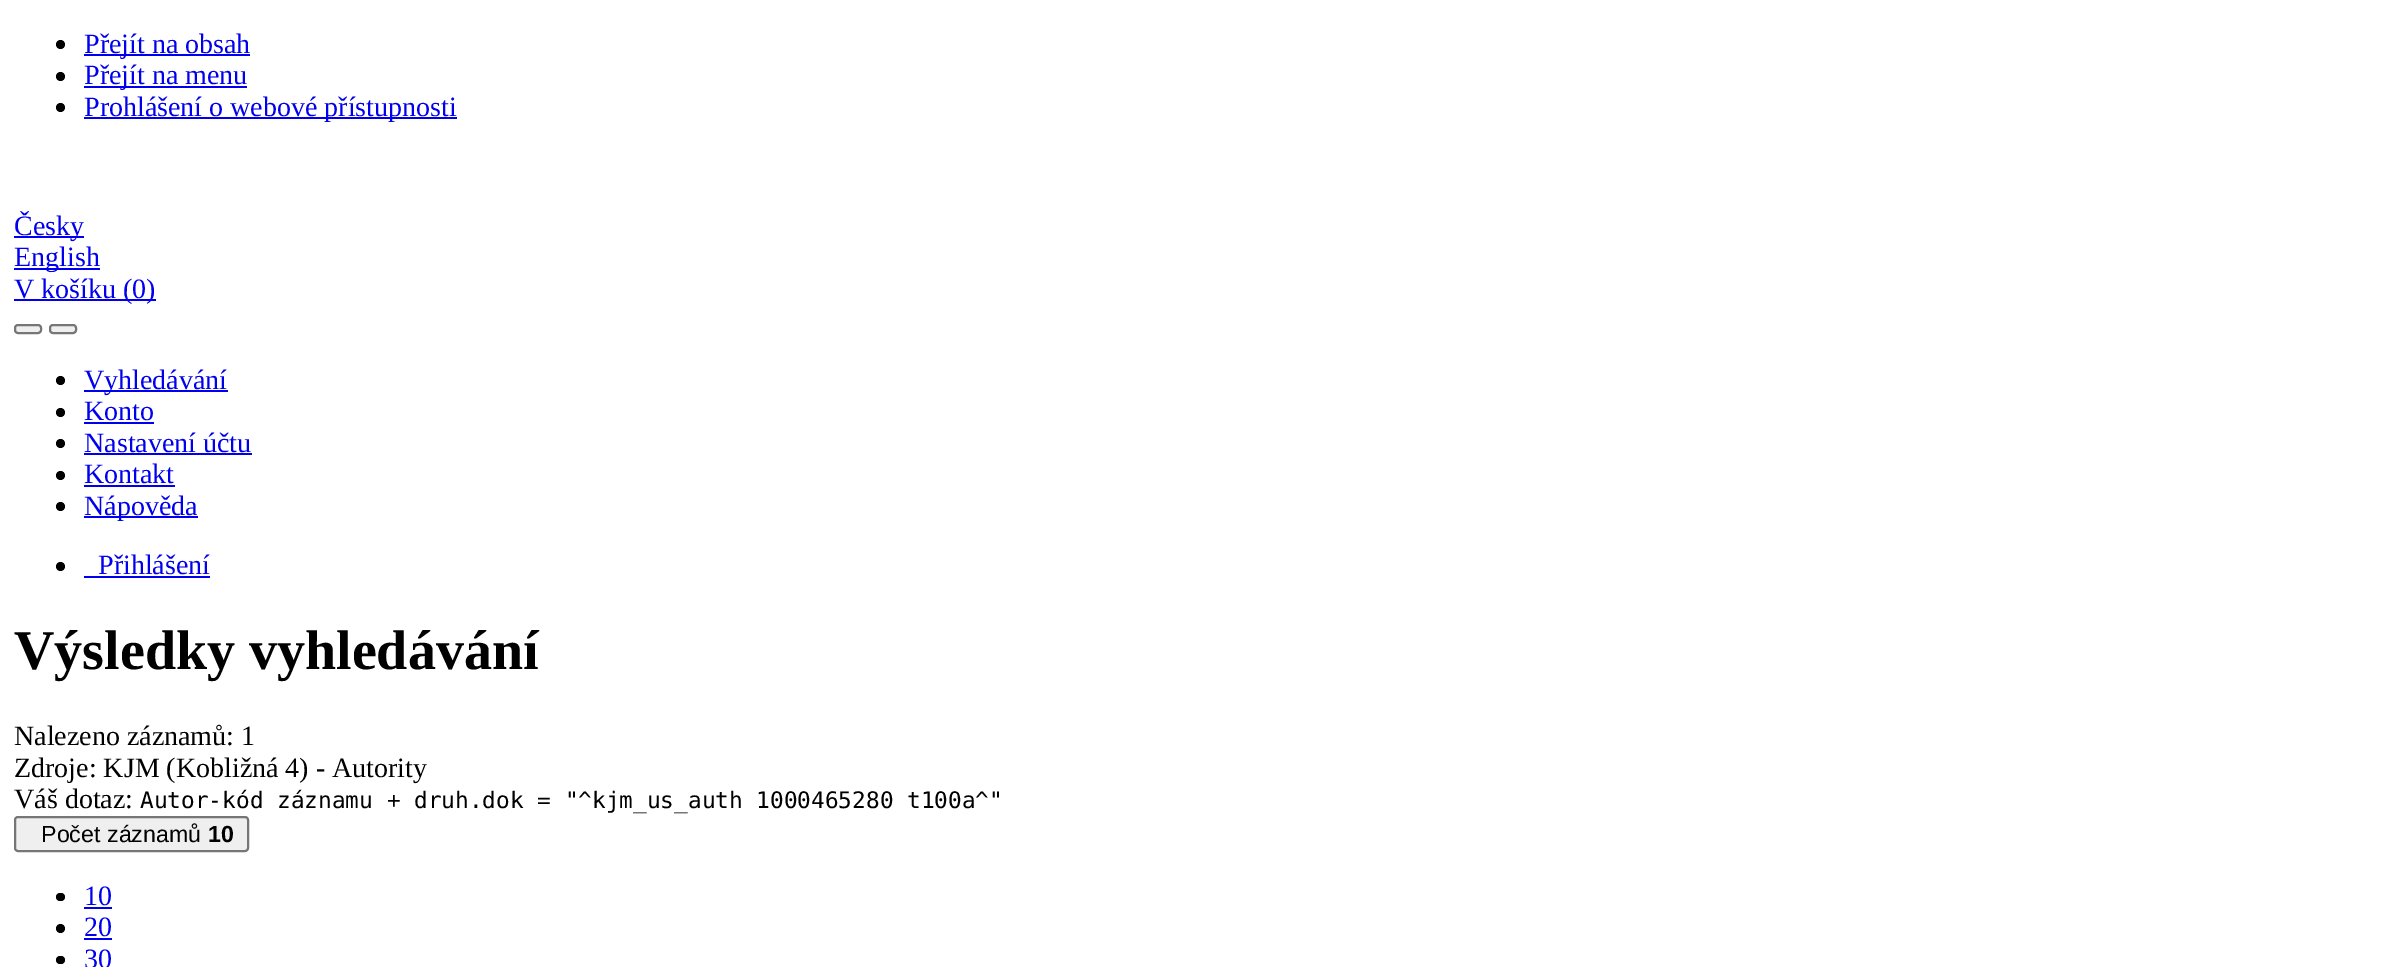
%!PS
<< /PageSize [2406 967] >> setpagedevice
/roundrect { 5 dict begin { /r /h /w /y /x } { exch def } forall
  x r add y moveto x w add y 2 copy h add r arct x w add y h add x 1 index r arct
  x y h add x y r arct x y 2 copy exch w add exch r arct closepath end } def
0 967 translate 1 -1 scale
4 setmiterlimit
1 setgray
0 0 2406 967 rectfill
0 setgray
newpath 60.5 44.5 4.5 0 360 arc closepath fill
0 0 0.933 setrgbcolor
84 54 166 2 rectfill
/LiberationSerif-Regular [28 0 0 -28 0 0] selectfont
84 53 moveto (Přejít na obsah) show
0 setgray
newpath 60.5 76.5 4.5 0 360 arc closepath fill
0 0 0.933 setrgbcolor
84 86 163 2 rectfill
84 84 moveto (Přejít na menu) show
0 setgray
newpath 60.5 107.5 4.5 0 360 arc closepath fill
0 0 0.933 setrgbcolor
84 117 373 2 rectfill
84 116 moveto (Prohlášení o webové přístupnosti) show
14 236 70 2 rectfill
14 235 moveto (Česky) show
14 268 86 2 rectfill
14 266 moveto (English) show
14 299 142 2 rectfill
14 298 moveto (V košíku \(0\)) show
0.937 setgray
15 325 26 8 3 roundrect gsave fill grestore
0.463 setgray
2 setlinewidth
stroke
0.937 setgray
50 325 26 8 3 roundrect gsave fill grestore
0.463 setgray
stroke
0 setgray
newpath 60.5 380.5 4.5 0 360 arc closepath fill
0 0 0.933 setrgbcolor
84 390 144 2 rectfill
84 389 moveto (Vyhledávání) show
0 setgray
newpath 60.5 412.5 4.5 0 360 arc closepath fill
0 0 0.933 setrgbcolor
84 420 moveto (Konto) show
84 422 70 2 rectfill
0 setgray
newpath 60.5 443.5 4.5 0 360 arc closepath fill
0 0 0.933 setrgbcolor
84 452 moveto (Nastavení účtu) show
84 453 168 2 rectfill
0 setgray
newpath 60.5 475.5 4.5 0 360 arc closepath fill
0 0 0.933 setrgbcolor
84 483 moveto (Kontakt) show
84 485 91 2 rectfill
0 setgray
newpath 60.5 506.5 4.5 0 360 arc closepath fill
0 0 0.933 setrgbcolor
84 516 114 2 rectfill
84 515 moveto (Nápověda) show
0 setgray
newpath 60.5 566.5 4.5 0 360 arc closepath fill
0 0 0.933 setrgbcolor
98 574 moveto (Přihlášení) show
84 576 126 2 rectfill
/LiberationSerif-Bold [56 0 0 -56 0 0] selectfont
0 setgray
14 669 moveto (Výsledky vyhledávání) show
/LiberationSerif-Regular [28 0 0 -28 0 0] selectfont
14 745 moveto (Nalezeno záznamů: 1) show
14 777 moveto (Zdroje: KJM \(Kobližná 4\) - Autority) show
14 808 moveto (Váš dotaz:) show
/DejaVuSansMono-Regular [22.75 0 0 -22.75 0 0] selectfont
140 808 moveto (Autor-kód záznamu + druh.dok = "^kjm_us_auth 1000465280 t100a^") show
0.937 setgray
15 817 233 34 3 roundrect gsave fill grestore
0.463 setgray
stroke
/LiberationSans-Regular [23.25 0 0 -23.25 0 0] selectfont
0 setgray
41 842 moveto (Počet záznamů) show
/LiberationSans-Bold [23.25 0 0 -23.25 0 0] selectfont
208 842 moveto (10) show
56 893 9 8 4 roundrect fill
/LiberationSerif-Regular [28 0 0 -28 0 0] selectfont
0 0 0.933 setrgbcolor
84 905 moveto (10) show
84 907 28 2 rectfill
0 setgray
newpath 60.5 928.5 4.5 0 360 arc closepath fill
0 0 0.933 setrgbcolor
84 936 moveto (20) show
84 938 28 2 rectfill
0 setgray
56 956 9 8 4 roundrect fill
0 0 0.933 setrgbcolor
84 968 moveto (30) show
showpage
